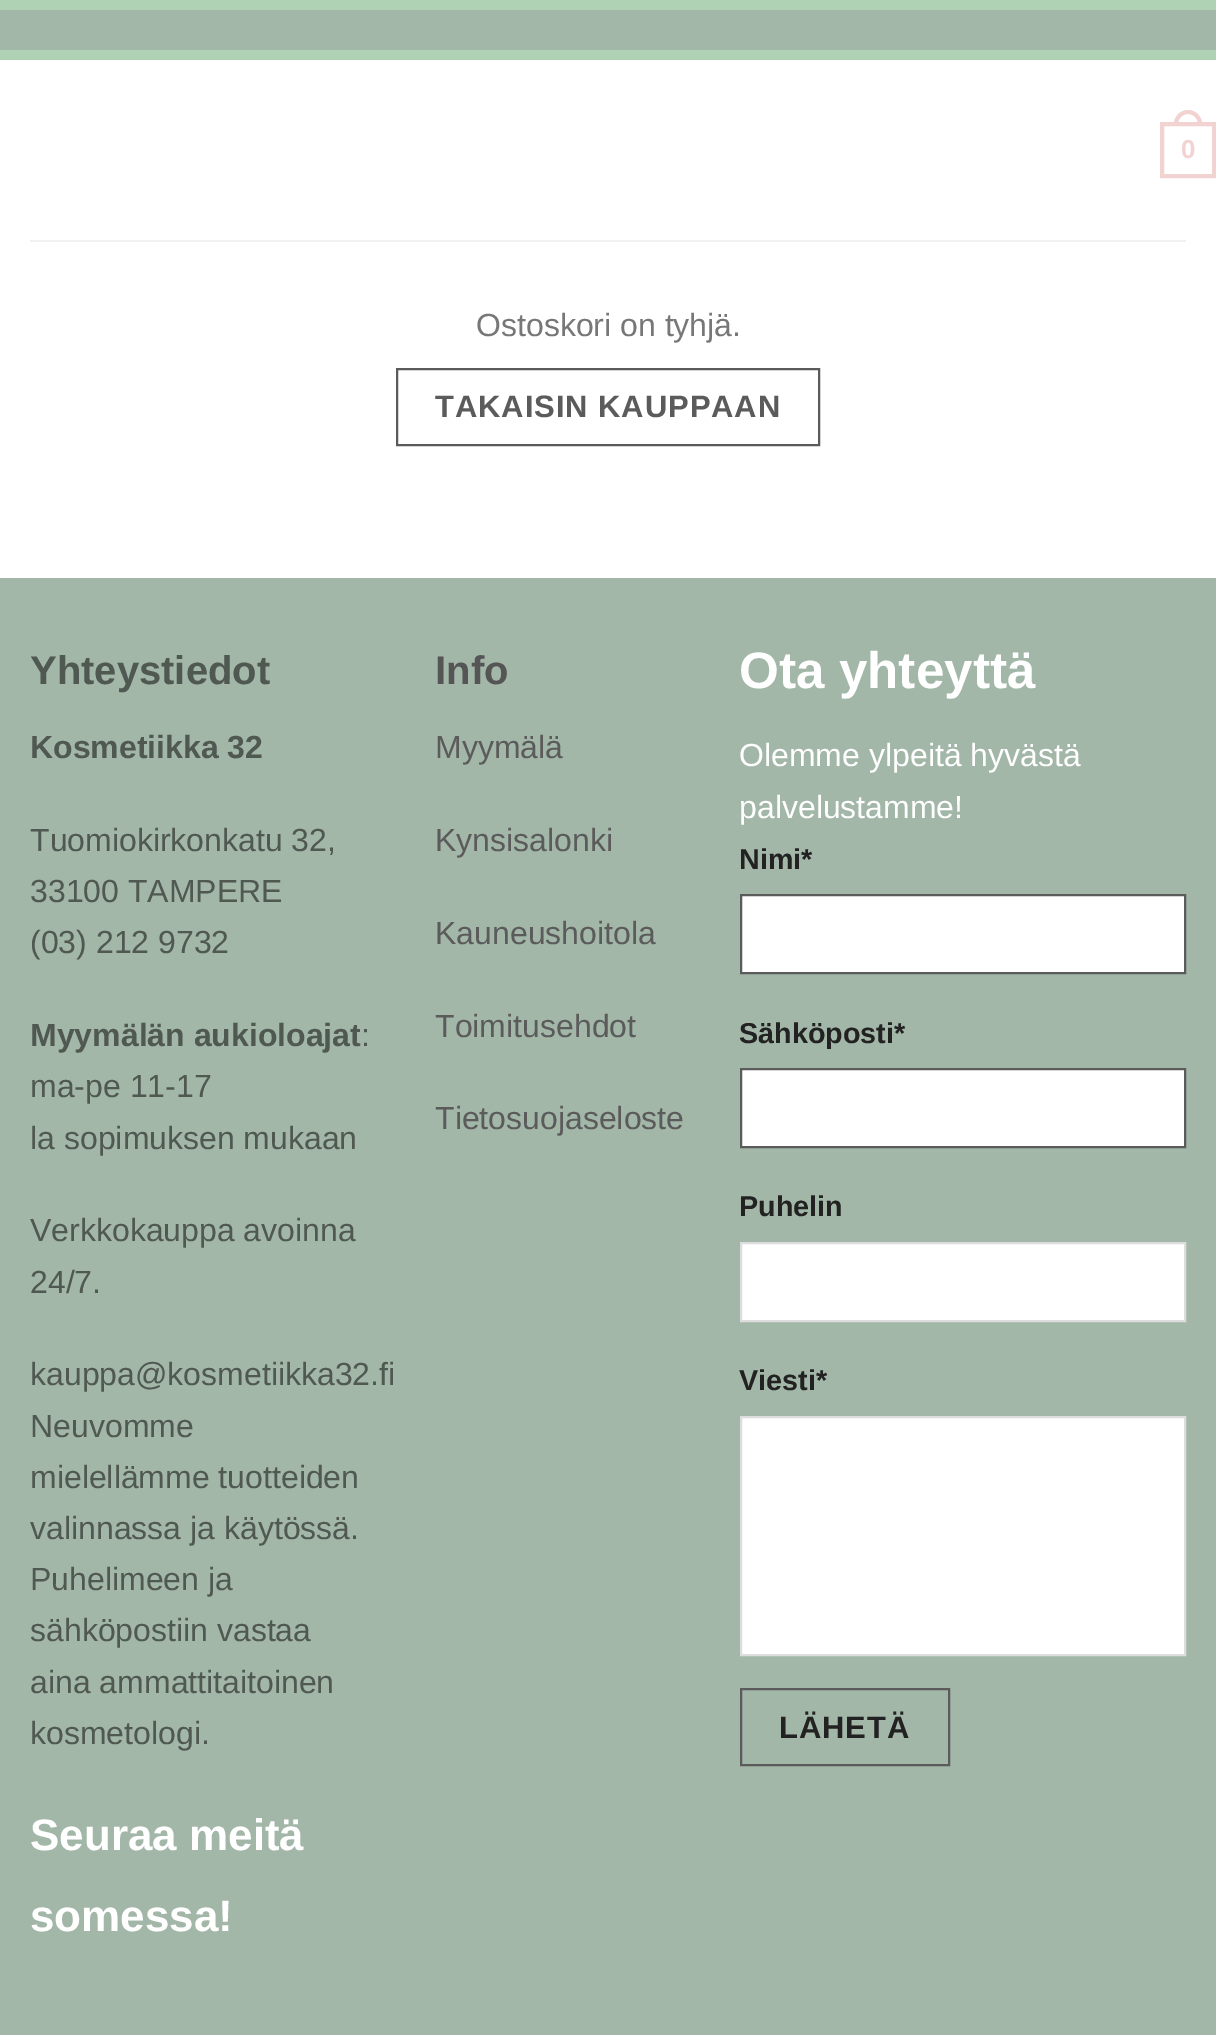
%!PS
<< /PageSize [1216 2035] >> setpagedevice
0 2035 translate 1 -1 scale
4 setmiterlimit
1 setgray
0 0 1216 2035 rectfill
0.686 0.82 0.706 setrgbcolor
0 0 1216 60 rectfill
0.639 0.718 0.663 setrgbcolor
0 10 1216 40 rectfill
0.953 0.824 0.824 setrgbcolor
4 setlinewidth
1162 124 52 52 rectstroke
newpath 1188 110 moveto 1195.5 110 1202 116.5 1202 124 curveto 1202 126 lineto 1174 126 lineto 1174 124 lineto 1174 116.5 1180.5 110 1188 110 curveto closepath 1188 114 moveto 1193.5 114 1198 118.5 1198 124 curveto 1198 126 lineto 1178 126 lineto 1178 124 lineto 1178 118.5 1182.5 114 1188 114 curveto closepath eofill
/LiberationSans-Bold [26 0 0 -26 0 0] selectfont
1181 158 moveto (0) show
0.945 setgray
30 240 1156 2 rectfill
/LiberationSans-Regular [32 0 0 -32 0 0] selectfont
0.467 setgray
476 336 moveto (Ostoskori on tyhjä.) show
0.357 setgray
2 setlinewidth
397 369 422 76 rectstroke
/LiberationSans-Bold [31 0 0 -31 0 0] selectfont
435 417 moveto 0.9 0 (TAKAISIN KAUPPAAN) ashow
0.639 0.718 0.663 setrgbcolor
0 578 1216 1457 rectfill
/LiberationSans-Bold [40 0 0 -40 0 0] selectfont
0.31 0.345 0.318 setrgbcolor
30 684 moveto (Yhteystiedot) show
/LiberationSans-Bold [32 0 0 -32 0 0] selectfont
30 758 moveto (Kosmetiikka 32) show
/LiberationSans-Regular [32 0 0 -32 0 0] selectfont
30 851 moveto (Tuomiokirkonkatu 32,) show
30 902 moveto (33100 TAMPERE) show
30 953 moveto (\(03\) 212 9732) show
/LiberationSans-Bold [32 0 0 -32 0 0] selectfont
30 1046 moveto (Myymälän aukioloajat) show
/LiberationSans-Regular [32 0 0 -32 0 0] selectfont
361 1046 moveto (:) show
30 1097 moveto (ma-pe 11-17) show
30 1149 moveto (la sopimuksen mukaan) show
30 1241 moveto (Verkkokauppa avoinna) show
30 1293 moveto (24/7.) show
30 1385 moveto (kauppa@kosmetiikka32.fi) show
30 1437 moveto (Neuvomme) show
30 1488 moveto (mielellämme tuotteiden) show
30 1539 moveto (valinnassa ja käytössä.) show
30 1590 moveto (Puhelimeen ja) show
30 1641 moveto (sähköpostiin vastaa) show
30 1693 moveto (aina ammattitaitoinen) show
30 1744 moveto (kosmetologi.) show
/LiberationSans-Bold [44 0 0 -44 0 0] selectfont
1 setgray
30 1850 moveto (Seuraa meitä) show
30 1931 moveto (somessa!) show
/LiberationSans-Bold [40 0 0 -40 0 0] selectfont
0.333 setgray
435 684 moveto (Info) show
/LiberationSans-Regular [32 0 0 -32 0 0] selectfont
0.357 setgray
435 758 moveto (Myymälä) show
435 851 moveto (Kynsisalonki) show
435 944 moveto (Kauneushoitola) show
435 1037 moveto (Toimitusehdot) show
435 1129 moveto (Tietosuojaseloste) show
/LiberationSans-Bold [51.25 0 0 -51.25 0 0] selectfont
1 setgray
739 688 moveto (Ota yhteyttä) show
/LiberationSans-Regular [32 0 0 -32 0 0] selectfont
739 766 moveto (Olemme ylpeitä hyvästä) show
739 818 moveto (palvelustamme!) show
/LiberationSans-Bold [28.75 0 0 -28.75 0 0] selectfont
0.133 setgray
739 869 moveto (Nimi*) show
1 setgray
newpath 741 895 moveto 1185 895 lineto 1185 973 lineto 741 973 lineto closepath gsave fill grestore
0.357 setgray
stroke
0.133 setgray
739 1043 moveto (Sähköposti*) show
1 setgray
newpath 741 1069 moveto 1185 1069 lineto 1185 1147 lineto 741 1147 lineto closepath gsave fill grestore
0.357 setgray
stroke
0.133 setgray
739 1216 moveto (Puhelin) show
1 setgray
newpath 741 1243 moveto 1185 1243 lineto 1185 1321 lineto 741 1321 lineto closepath gsave fill grestore
0.867 setgray
stroke
0.133 setgray
739 1390 moveto (Viesti*) show
1 setgray
newpath 741 1417 moveto 1185 1417 lineto 1185 1655 lineto 741 1655 lineto closepath gsave fill grestore
0.867 setgray
stroke
0.357 setgray
741 1689 208 76 rectstroke
/LiberationSans-Bold [31 0 0 -31 0 0] selectfont
0.133 setgray
779 1738 moveto 0.9 0 (LÄHETÄ) ashow
showpage
